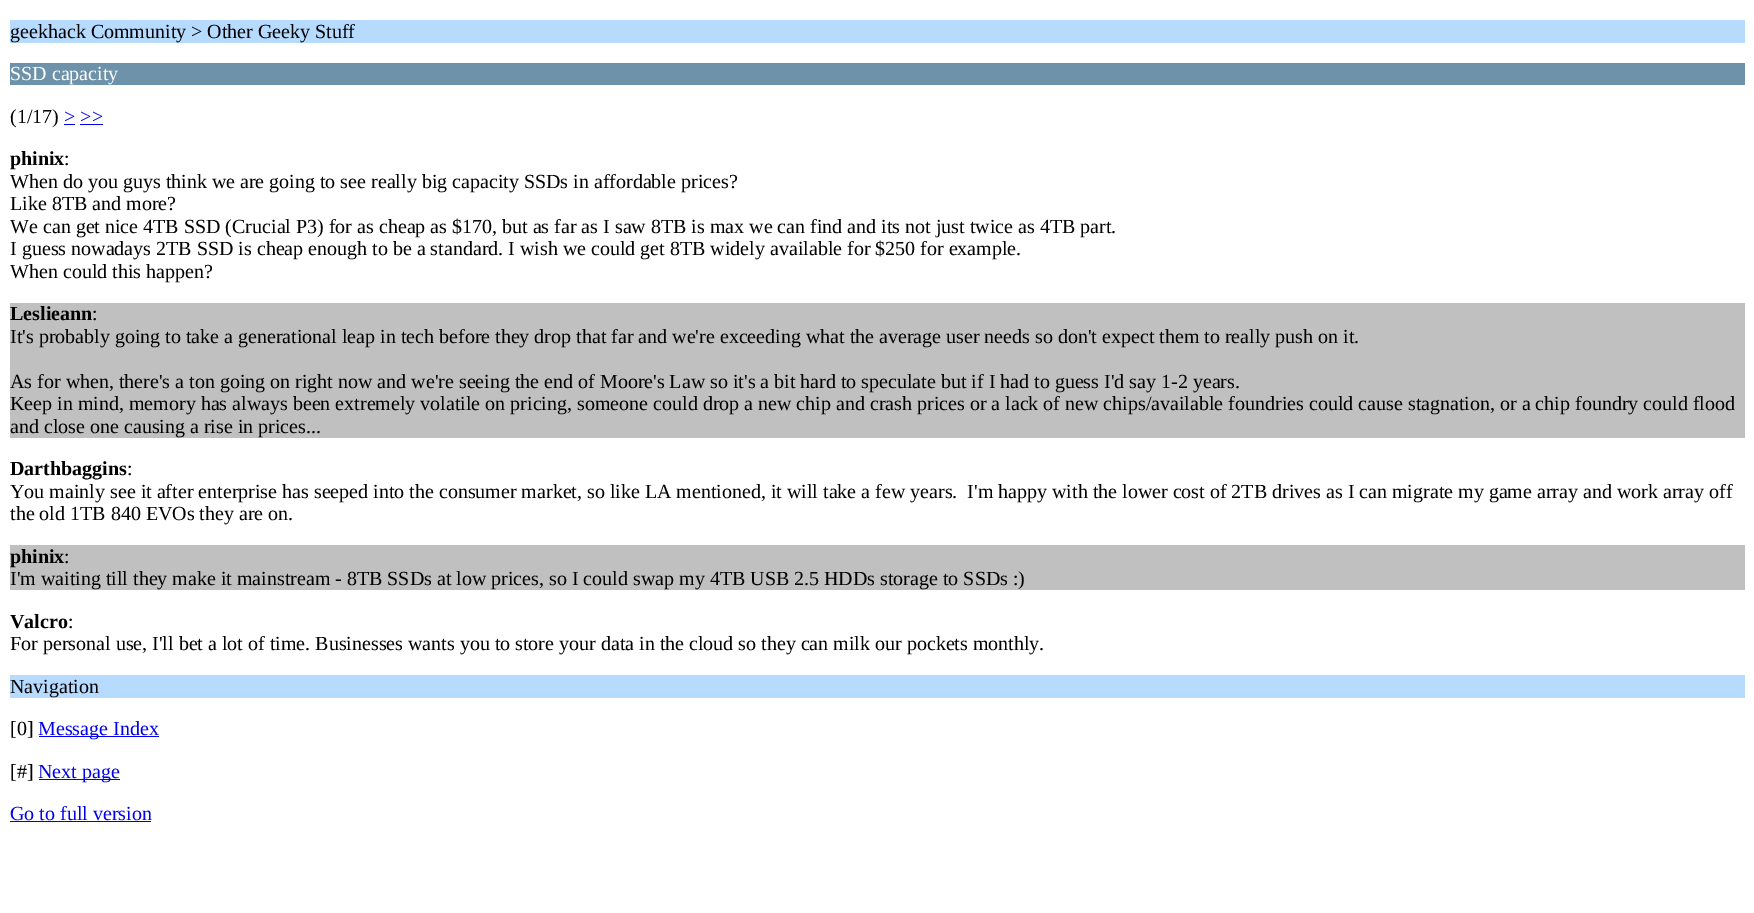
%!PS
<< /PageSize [1754 913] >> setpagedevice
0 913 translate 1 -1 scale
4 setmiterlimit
1 setgray
0 0 1754 913 rectfill
0.714 0.859 1 setrgbcolor
10 20 1735 23 rectfill
/LiberationSerif-Regular [20 0 0 -20 0 0] selectfont
0 setgray
10 38 moveto (geekhack Community > Other Geeky Stuff) show
0.427 0.573 0.667 setrgbcolor
10 63 1735 22 rectfill
1 setgray
10 80 moveto (SSD capacity) show
0 setgray
10 123 moveto (\(1/17\)) show
0 0 0.933 setrgbcolor
64 123 moveto (> >>) show
64 124 11 1 rectfill
80 124 23 1 rectfill
/LiberationSerif-Bold [20 0 0 -20 0 0] selectfont
0 setgray
10 165 moveto (phinix) show
/LiberationSerif-Regular [20 0 0 -20 0 0] selectfont
64 165 moveto (:) show
10 188 moveto (When do you guys think we are going to see really big capacity SSDs in affordable prices?) show
10 210 moveto (Like 8TB and more?) show
10 233 moveto (We can get nice 4TB SSD \(Crucial P3\) for as cheap as $170, but as far as I saw 8TB is max we can find and its not just twice as 4TB part.) show
10 255 moveto (I guess nowadays 2TB SSD is cheap enough to be a standard. I wish we could get 8TB widely available for $250 for example.) show
10 278 moveto (When could this happen?) show
0.753 setgray
10 303 1735 135 rectfill
/LiberationSerif-Bold [20 0 0 -20 0 0] selectfont
0 setgray
10 320 moveto (Leslieann) show
/LiberationSerif-Regular [20 0 0 -20 0 0] selectfont
92 320 moveto (:) show
10 343 moveto (It's probably going to take a generational leap in tech before they drop that far and we're exceeding what the average user needs so don't expect them to really push on it.) show
10 388 moveto (As for when, there's a ton going on right now and we're seeing the end of Moore's Law so it's a bit hard to speculate but if I had to guess I'd say 1-2 years.) show
10 410 moveto (Keep in mind, memory has always been extremely volatile on pricing, someone could drop a new chip and crash prices or a lack of new chips/available foundries could cause stagnation, or a chip foundry could flood) show
10 433 moveto (and close one causing a rise in prices...) show
/LiberationSerif-Bold [20 0 0 -20 0 0] selectfont
10 475 moveto (Darthbaggins) show
/LiberationSerif-Regular [20 0 0 -20 0 0] selectfont
127 475 moveto (:) show
10 498 moveto (You mainly see it after enterprise has seeped into the consumer market, so like LA mentioned, it will take a few years.  I'm happy with the lower cost of 2TB drives as I can migrate my game array and work array off) show
10 520 moveto (the old 1TB 840 EVOs they are on.) show
0.753 setgray
10 545 1735 45 rectfill
/LiberationSerif-Bold [20 0 0 -20 0 0] selectfont
0 setgray
10 563 moveto (phinix) show
/LiberationSerif-Regular [20 0 0 -20 0 0] selectfont
64 563 moveto (:) show
10 585 moveto (I'm waiting till they make it mainstream - 8TB SSDs at low prices, so I could swap my 4TB USB 2.5 HDDs storage to SSDs :\)) show
/LiberationSerif-Bold [20 0 0 -20 0 0] selectfont
10 628 moveto (Valcro) show
/LiberationSerif-Regular [20 0 0 -20 0 0] selectfont
68 628 moveto (:) show
10 650 moveto (For personal use, I'll bet a lot of time. Businesses wants you to store your data in the cloud so they can milk our pockets monthly.) show
0.714 0.859 1 setrgbcolor
10 675 1735 23 rectfill
0 setgray
10 693 moveto (Navigation) show
10 735 moveto ([0]) show
0 0 0.933 setrgbcolor
39 736 120 1 rectfill
38 735 moveto (Message Index) show
0 setgray
10 778 moveto ([#]) show
0 0 0.933 setrgbcolor
39 779 81 1 rectfill
38 778 moveto (Next page) show
10 820 moveto (Go to full version) show
10 821 141 1 rectfill
showpage
